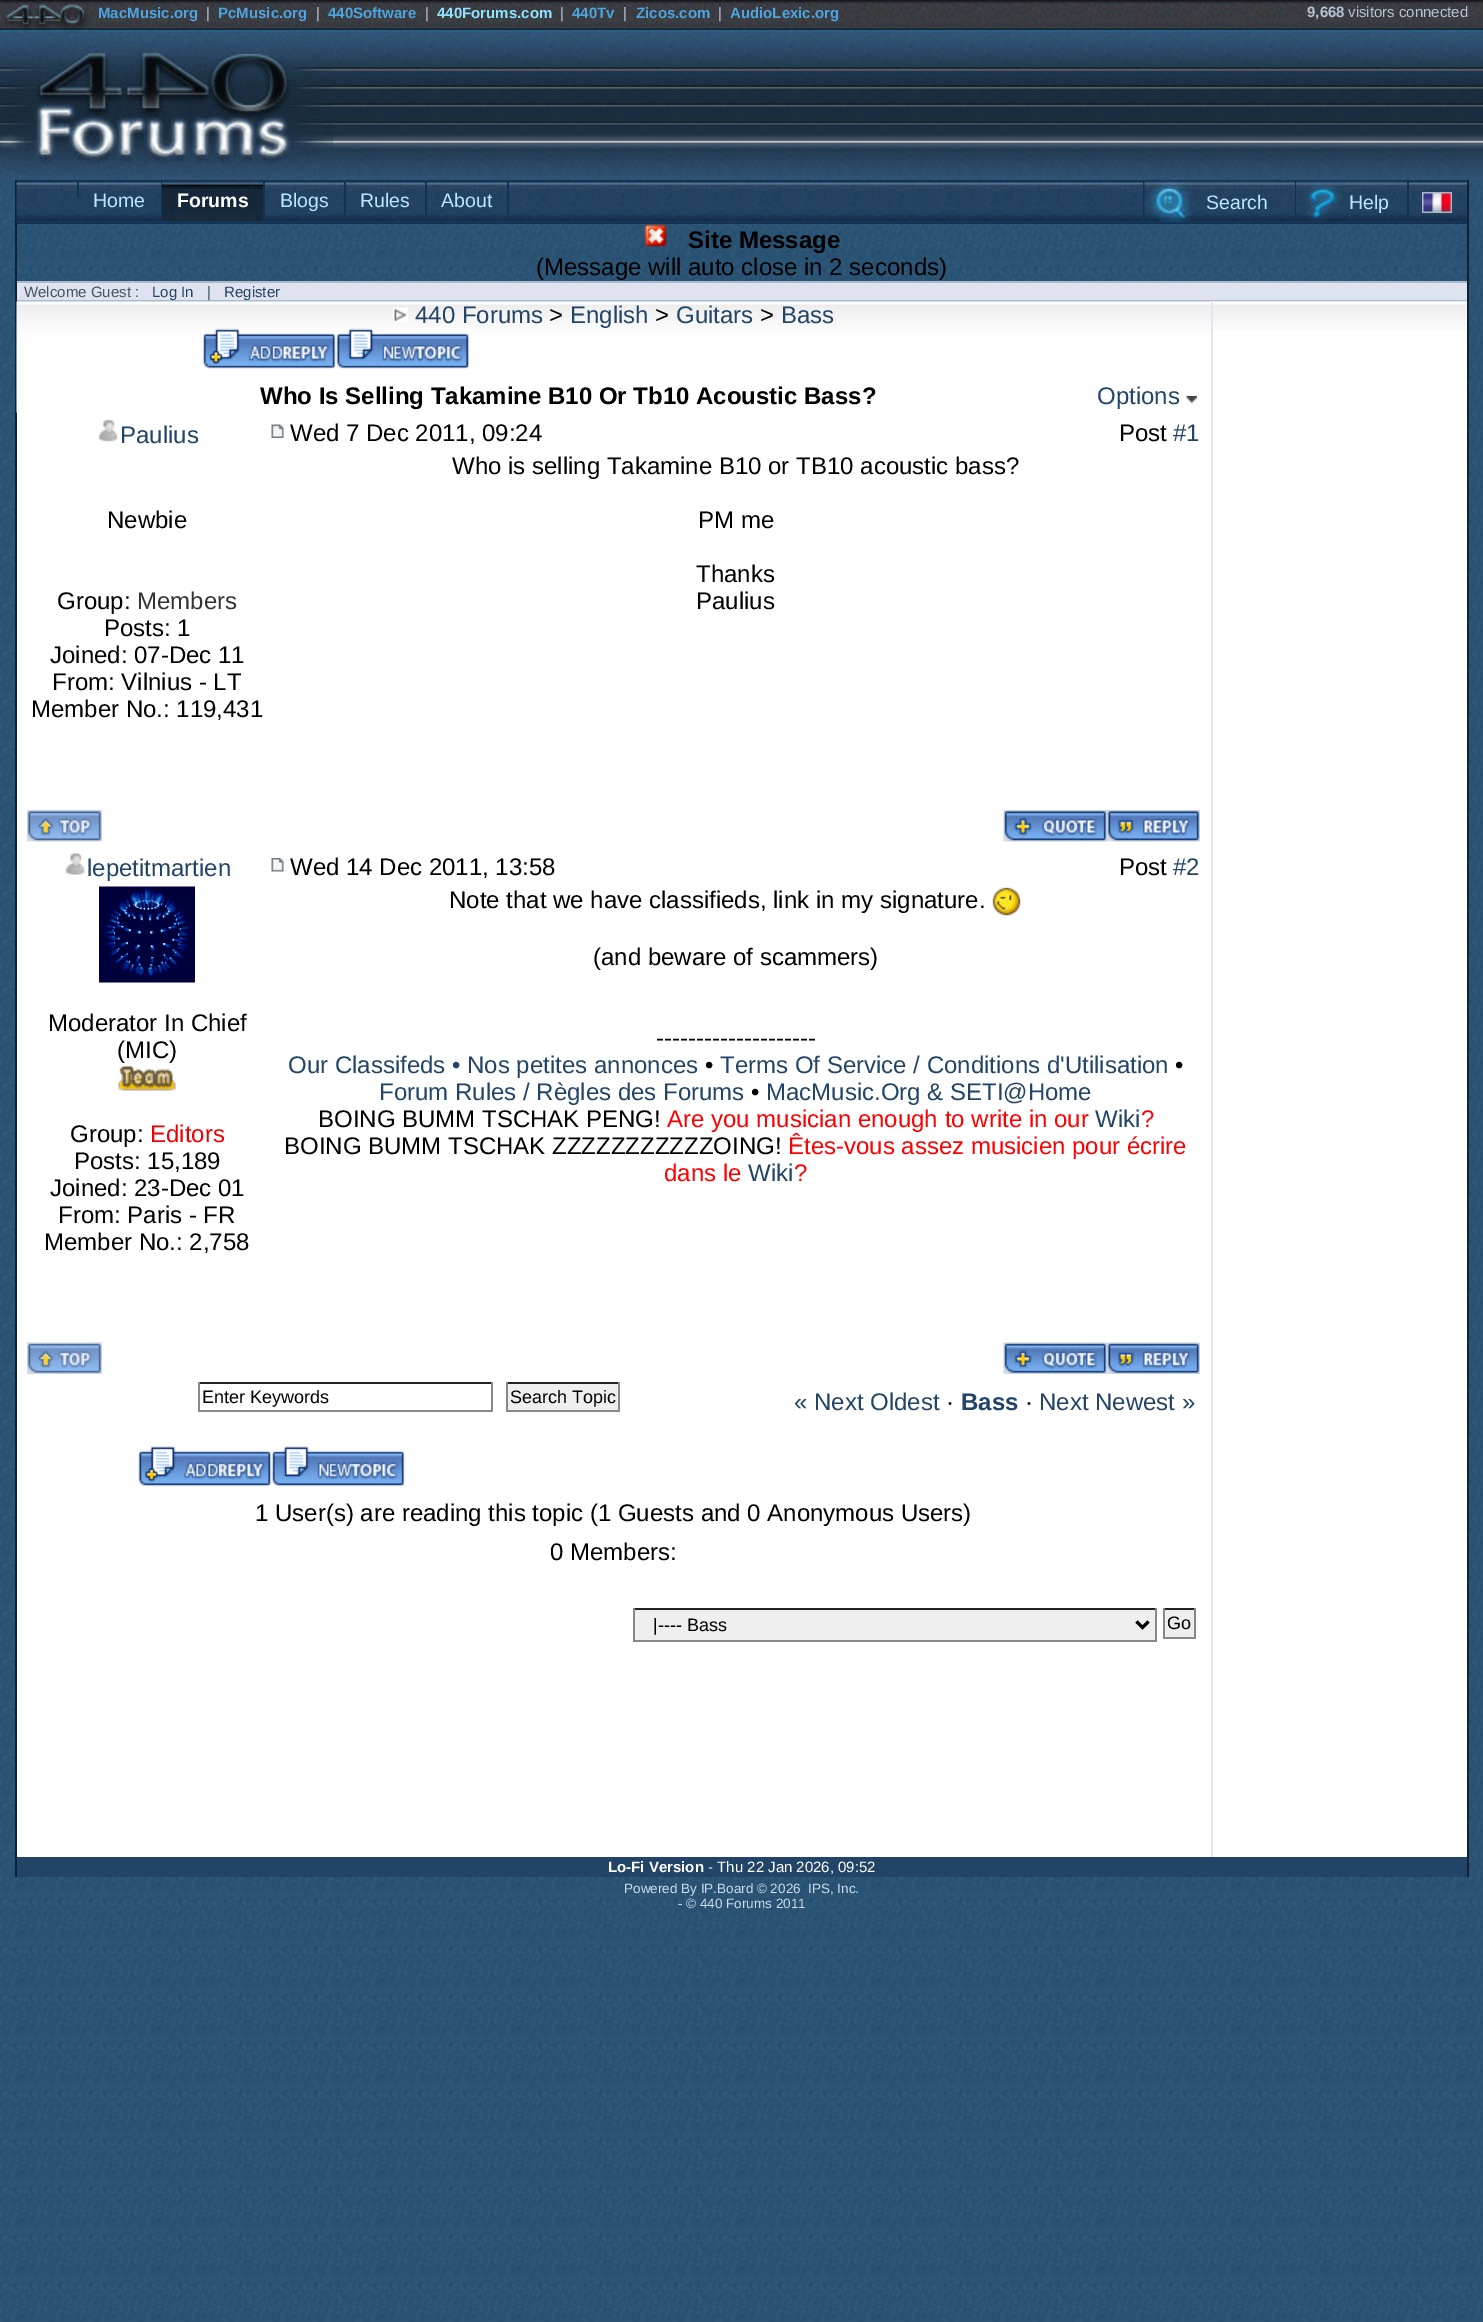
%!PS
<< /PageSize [1483 2322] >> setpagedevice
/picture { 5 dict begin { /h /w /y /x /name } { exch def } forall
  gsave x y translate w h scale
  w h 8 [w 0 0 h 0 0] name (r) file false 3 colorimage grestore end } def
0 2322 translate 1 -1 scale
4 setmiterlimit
1 setgray
0 0 1483 2322 rectfill
(img1.rgb) 0 180 1483 2142 picture
(img2.rgb) 0 0 1483 30 picture
(img3.rgb) 0 0 90 29 picture
/LiberationSans-Bold [15 0 0 -15 0 0] selectfont
0.306 0.643 0.871 setrgbcolor
98 18 moveto (MacMusic.org) show
/LiberationSans-Regular [15 0 0 -15 0 0] selectfont
0.718 0.765 0.82 setrgbcolor
206 18 moveto (|) show
/LiberationSans-Bold [15 0 0 -15 0 0] selectfont
0.306 0.643 0.871 setrgbcolor
218 18 moveto (PcMusic.org) show
/LiberationSans-Regular [15 0 0 -15 0 0] selectfont
0.718 0.765 0.82 setrgbcolor
316 18 moveto (|) show
/LiberationSans-Bold [15 0 0 -15 0 0] selectfont
0.306 0.643 0.871 setrgbcolor
328 18 moveto (440Software) show
/LiberationSans-Regular [15 0 0 -15 0 0] selectfont
0.718 0.765 0.82 setrgbcolor
425 18 moveto (|) show
/LiberationSans-Bold [15 0 0 -15 0 0] selectfont
0.557 0.894 1 setrgbcolor
437 18 moveto (440Forums.com) show
/LiberationSans-Regular [15 0 0 -15 0 0] selectfont
0.718 0.765 0.82 setrgbcolor
560 18 moveto (|) show
/LiberationSans-Bold [15 0 0 -15 0 0] selectfont
0.306 0.643 0.871 setrgbcolor
572 18 moveto (440Tv) show
/LiberationSans-Regular [15 0 0 -15 0 0] selectfont
0.718 0.765 0.82 setrgbcolor
623 18 moveto (|) show
/LiberationSans-Bold [15 0 0 -15 0 0] selectfont
0.306 0.643 0.871 setrgbcolor
636 18 moveto (Zicos.com) show
/LiberationSans-Regular [15 0 0 -15 0 0] selectfont
0.718 0.765 0.82 setrgbcolor
718 18 moveto (|) show
/LiberationSans-Bold [15 0 0 -15 0 0] selectfont
0.306 0.643 0.871 setrgbcolor
730 18 moveto (AudioLexic.org) show
0.718 0.765 0.82 setrgbcolor
1307 17 moveto (9,668) show
/LiberationSans-Regular [15 0 0 -15 0 0] selectfont
1348 17 moveto (visitors connected) show
(img4.rgb) 333 30 1150 150 picture
(img5.rgb) 0 30 333 150 picture
0.067 0.133 0.2 setrgbcolor
1467 180 2 1697 rectfill
15 180 2 1697 rectfill
(img6.rgb) 16 181 1451 41 picture
0.067 0.2 0.333 setrgbcolor
17 180 1450 2 rectfill
17 222 1450 2 rectfill
77 182 2 16 rectfill
161 182 1 39 rectfill
/LiberationSans-Regular [19.5 0 0 -19.5 0 0] selectfont
0.725 0.91 1 setrgbcolor
93 207 moveto (Home) show
0.059 0.122 0.18 setrgbcolor
162 220 101 1 rectfill
(img7.rgb) 162 181 102 40 picture
0.067 0.2 0.333 setrgbcolor
263 182 2 39 rectfill
/LiberationSans-Bold [19.5 0 0 -19.5 0 0] selectfont
1 setgray
177 207 moveto (Forums) show
0.067 0.2 0.333 setrgbcolor
344 182 2 39 rectfill
/LiberationSans-Regular [19.5 0 0 -19.5 0 0] selectfont
0.725 0.91 1 setrgbcolor
280 207 moveto (Blogs) show
0.067 0.2 0.333 setrgbcolor
425 182 2 39 rectfill
0.725 0.91 1 setrgbcolor
360 207 moveto (Rules) show
0.067 0.2 0.333 setrgbcolor
507 182 2 39 rectfill
0.725 0.91 1 setrgbcolor
441 207 moveto (About) show
0.067 0.2 0.333 setrgbcolor
1295 182 1 40 rectfill
1143 182 2 40 rectfill
(img8.rgb) 1144 181 151 41 picture
0.725 0.91 1 setrgbcolor
1206 209 moveto (Search) show
0.067 0.2 0.333 setrgbcolor
1407 182 2 40 rectfill
(img9.rgb) 1296 181 111 41 picture
0.725 0.91 1 setrgbcolor
1349 209 moveto (Help) show
(img10.rgb) 1422 192 30 21 picture
(img11.rgb) 644 224 23 23 picture
/LiberationSans-Bold [24 0 0 -24 0 0] selectfont
0 setgray
688 248 moveto (Site Message) show
/LiberationSans-Regular [24 0 0 -24 0 0] selectfont
536 275 moveto (\(Message will auto close in 2 seconds\)) show
0.875 0.89 0.937 setrgbcolor
17 283 1450 17 rectfill
0.667 0.733 0.8 setrgbcolor
17 281 1450 2 rectfill
17 300 1450 2 rectfill
/LiberationSans-Regular [15 0 0 -15 0 0] selectfont
0.267 0.333 0.4 setrgbcolor
24 297 moveto (Welcome Guest :) show
0.133 0.267 0.4 setrgbcolor
152 297 moveto (Log In) show
0.267 0.333 0.4 setrgbcolor
207 297 moveto (|) show
0.133 0.267 0.4 setrgbcolor
224 297 moveto (Register) show
1 setgray
17 412 1194 1445 rectfill
(img12.rgb) 16 301 1451 112 picture
(img13.rgb) 393 307 15 16 picture
/LiberationSans-Regular [24 0 0 -24 0 0] selectfont
0.133 0.267 0.4 setrgbcolor
415 323 moveto (440 Forums) show
0 setgray
549 323 moveto (>) show
0.133 0.267 0.4 setrgbcolor
570 323 moveto (English) show
0 setgray
655 323 moveto (>) show
0.133 0.267 0.4 setrgbcolor
676 323 moveto (Guitars) show
0 setgray
760 323 moveto (>) show
0.133 0.267 0.4 setrgbcolor
781 323 moveto (Bass) show
(img14.rgb) 202 328 134 41 picture
(img15.rgb) 336 328 134 41 picture
/LiberationSans-Bold [24 0 0 -24 0 0] selectfont
0 setgray
260 404 moveto (Who Is Selling Takamine B10 Or Tb10 Acoustic Bass?) show
/LiberationSans-Regular [24 0 0 -24 0 0] selectfont
0.133 0.267 0.4 setrgbcolor
1097 404 moveto (Options) show
(img16.rgb) 1186 396 11 8 picture
(img17.rgb) 98 419 20 23 picture
120 443 moveto (Paulius) show
(img18.rgb) 271 424 13 14 picture
0 setgray
290 441 moveto (Wed 7 Dec 2011, 09:24) show
1119 441 moveto (Post) show
0.133 0.267 0.4 setrgbcolor
1173 441 moveto (#1) show
0 setgray
107 528 moveto (Newbie) show
57 609 moveto (Group:) show
0.2 setgray
137 609 moveto (Members) show
0 setgray
104 636 moveto (Posts: 1) show
50 663 moveto (Joined: 07-Dec 11) show
52 690 moveto (From: Vilnius - LT) show
31 717 moveto (Member No.: 119,431) show
452 474 moveto (Who is selling Takamine B10 or TB10 acoustic bass?) show
698 528 moveto (PM me) show
696 582 moveto (Thanks) show
696 609 moveto (Paulius) show
(img19.rgb) 27 810 75 32 picture
(img20.rgb) 1003 810 104 32 picture
(img21.rgb) 1107 810 93 32 picture
(img22.rgb) 65 853 20 22 picture
0.133 0.267 0.4 setrgbcolor
87 876 moveto (lepetitmartien) show
(img23.rgb) 271 858 13 14 picture
0 setgray
290 875 moveto (Wed 14 Dec 2011, 13:58) show
1119 875 moveto (Post) show
0.133 0.267 0.4 setrgbcolor
1173 875 moveto (#2) show
(img24.rgb) 99 886 96 97 picture
0 setgray
48 1031 moveto (Moderator In Chief) show
117 1058 moveto (\(MIC\)) show
(img25.rgb) 118 1066 58 25 picture
70 1142 moveto (Group:) show
0.933 0 0 setrgbcolor
150 1142 moveto (Editors) show
0 setgray
74 1169 moveto (Posts: 15,189) show
50 1196 moveto (Joined: 23-Dec 01) show
58 1223 moveto (From: Paris - FR) show
44 1250 moveto (Member No.: 2,758) show
449 908 moveto (Note that we have classifieds, link in my signature.) show
(img26.rgb) 992 887 29 29 picture
593 965 moveto (\(and beware of scammers\)) show
656 1046 moveto (--------------------) show
0.133 0.267 0.4 setrgbcolor
288 1073 moveto (Our Classifeds • Nos petites annonces) show
0 setgray
705 1073 moveto (•) show
0.133 0.267 0.4 setrgbcolor
720 1073 moveto (Terms Of Service / Conditions d'Utilisation) show
0 setgray
1175 1073 moveto (•) show
0.133 0.267 0.4 setrgbcolor
379 1100 moveto (Forum Rules / Règles des Forums) show
0 setgray
751 1100 moveto (•) show
0.133 0.267 0.4 setrgbcolor
766 1100 moveto (MacMusic.Org & SETI@Home) show
0 setgray
318 1127 moveto (BOING BUMM TSCHAK PENG!) show
1 0 0 setrgbcolor
667 1127 moveto (Are you musician enough to write in our) show
0.133 0.267 0.4 setrgbcolor
1095 1127 moveto (Wiki) show
1 0 0 setrgbcolor
1141 1127 moveto (?) show
0 setgray
284 1154 moveto (BOING BUMM TSCHAK ZZZZZZZZZZZOING!) show
1 0 0 setrgbcolor
788 1154 moveto (Êtes-vous assez musicien pour écrire) show
664 1181 moveto (dans le) show
0.133 0.267 0.4 setrgbcolor
748 1181 moveto (Wiki) show
1 0 0 setrgbcolor
794 1181 moveto (?) show
(img27.rgb) 27 1342 75 32 picture
(img28.rgb) 1003 1342 104 32 picture
(img29.rgb) 1107 1342 93 32 picture
0.133 setgray
198 1382 294 2 rectfill
0.533 setgray
491 1382 2 30 rectfill
198 1410 294 2 rectfill
198 1382 2 30 rectfill
/LiberationSans-Regular [18 0 0 -18 0 0] selectfont
0 setgray
202 1403 moveto (Enter Keywords) show
0.937 setgray
508 1384 110 26 rectfill
0.133 setgray
506 1382 114 2 rectfill
0.533 setgray
618 1382 2 30 rectfill
506 1410 114 2 rectfill
506 1382 2 30 rectfill
0 setgray
510 1403 moveto (Search Topic) show
/LiberationSans-Regular [24 0 0 -24 0 0] selectfont
0.133 0.267 0.4 setrgbcolor
794 1410 moveto (« Next Oldest) show
0 setgray
946 1410 moveto (·) show
/LiberationSans-Bold [24 0 0 -24 0 0] selectfont
0.133 0.267 0.4 setrgbcolor
961 1410 moveto (Bass) show
/LiberationSans-Regular [24 0 0 -24 0 0] selectfont
0 setgray
1025 1410 moveto (·) show
0.133 0.267 0.4 setrgbcolor
1039 1410 moveto (Next Newest ») show
(img30.rgb) 138 1446 134 41 picture
(img31.rgb) 271 1446 134 41 picture
0 setgray
255 1521 moveto (1 User\(s\) are reading this topic \(1 Guests and 0 Anonymous Users\)) show
550 1560 moveto (0 Members:) show
0.937 setgray
635 1610 520 30 rectfill
0.133 setgray
633 1608 524 2 rectfill
0.533 setgray
1155 1608 2 33 rectfill
633 1640 524 2 rectfill
633 1608 2 33 rectfill
0 setgray
3 setlinewidth
newpath 1136.5 1621.5 moveto 1142.5 1627.5 lineto 1148.5 1621.5 lineto stroke
/LiberationSans-Regular [18 0 0 -18 0 0] selectfont
653 1631 moveto (|---- Bass) show
0.937 setgray
1165 1610 29 27 rectfill
0.133 setgray
1163 1608 33 2 rectfill
0.533 setgray
1194 1608 2 30 rectfill
1163 1637 33 2 rectfill
1163 1608 2 30 rectfill
0 setgray
1167 1629 moveto (Go) show
1 setgray
1213 330 254 1527 rectfill
(img32.rgb) 1210 301 257 29 picture
0.898 0.898 0.937 setrgbcolor
1211 302 2 1555 rectfill
0.133 0.267 0.4 setrgbcolor
17 1857 1450 20 rectfill
/LiberationSans-Bold [15 0 0 -15 0 0] selectfont
1 setgray
608 1872 moveto (Lo-Fi Version) show
/LiberationSans-Regular [15 0 0 -15 0 0] selectfont
708 1872 moveto (- Thu 22 Jan 2026, 09:52) show
/LiberationSans-Regular [13.5 0 0 -13.5 0 0] selectfont
0.8 0.867 0.933 setrgbcolor
624 1893 moveto (Powered By IP.Board © 2026) show
808 1893 moveto (IPS, Inc.) show
678 1908 moveto (- © 440 Forums 2011) show
showpage
